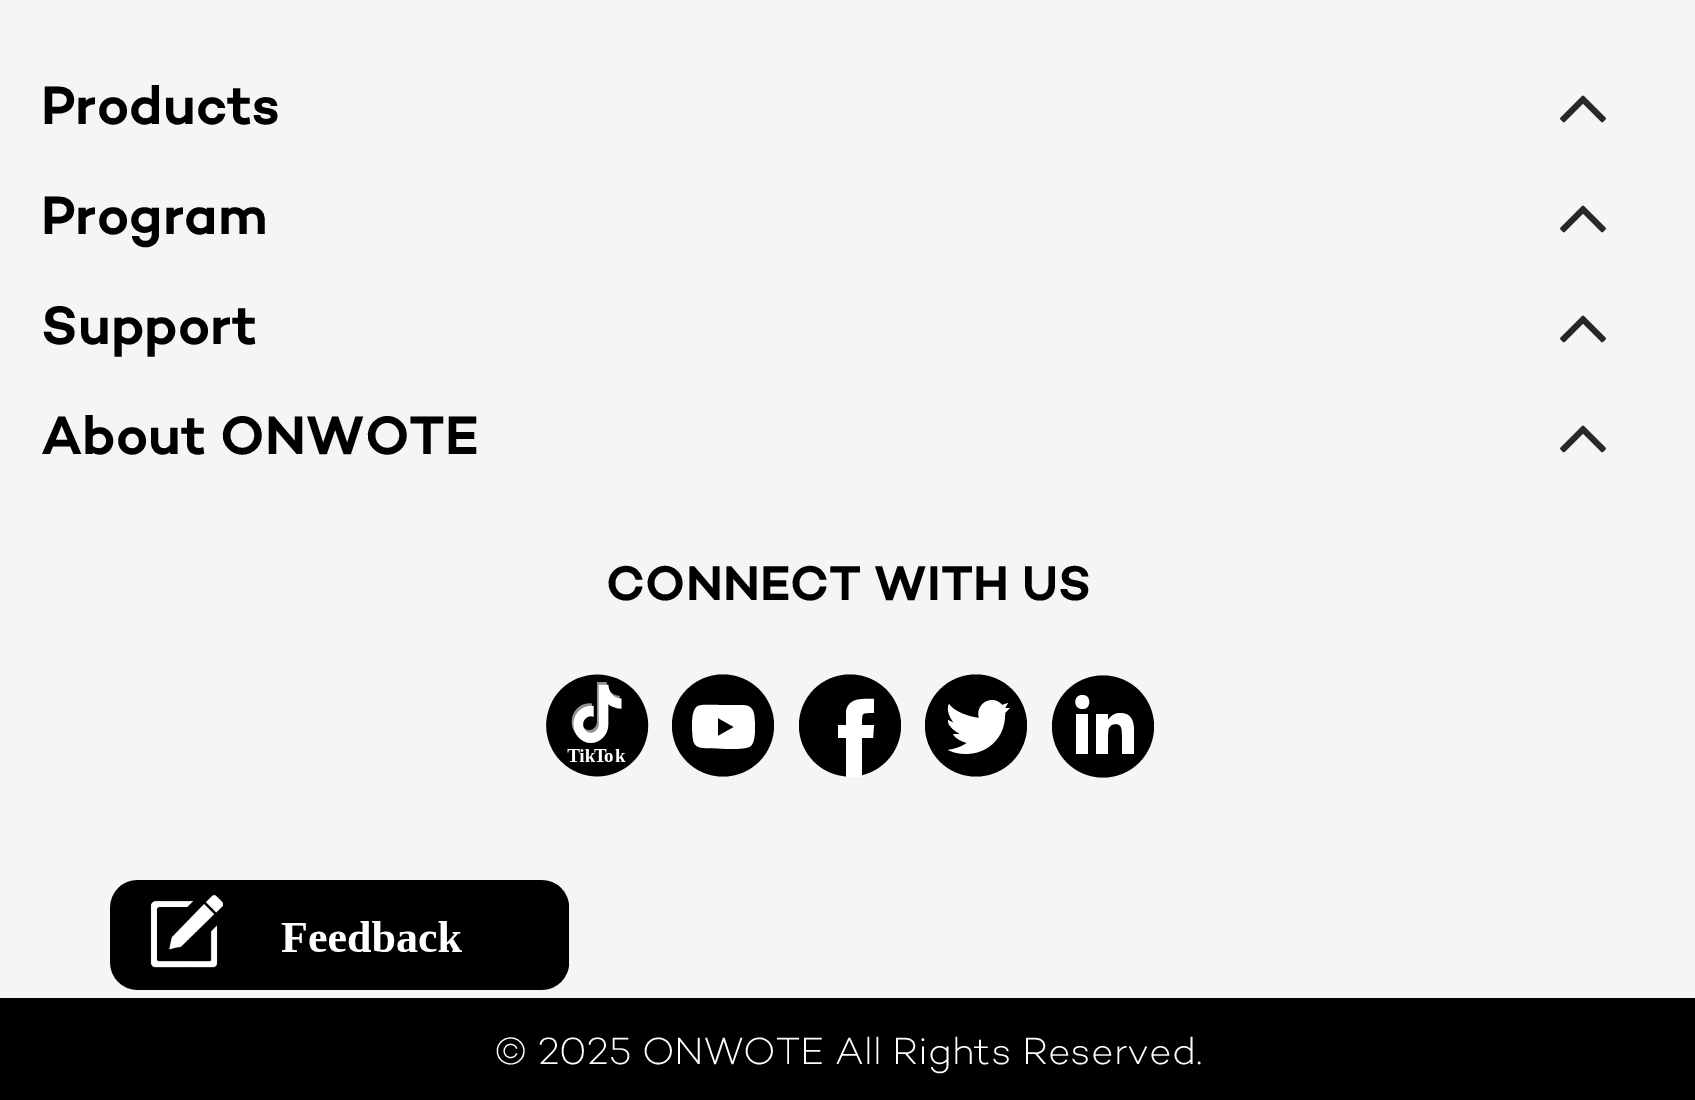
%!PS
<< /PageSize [1695 1100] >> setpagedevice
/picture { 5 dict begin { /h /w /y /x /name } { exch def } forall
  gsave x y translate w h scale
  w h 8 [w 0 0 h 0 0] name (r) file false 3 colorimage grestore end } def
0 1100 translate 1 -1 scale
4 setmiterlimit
0.961 setgray
0 0 1695 1100 rectfill
/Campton-SemiBold [55 0 0 -55 0 0] selectfont
0 setgray
41 124 moveto (Products) show
(img1.rgb) 1560 95 46 28 picture
41 234 moveto (Program) show
(img1.rgb) 1560 205 46 28 picture
41 344 moveto (Support) show
(img1.rgb) 1560 315 46 28 picture
41 454 moveto (About ONWOTE) show
(img1.rgb) 1560 425 46 28 picture
/Campton-SemiBold [49.5 0 0 -49.5 0 0] selectfont
606 600 moveto (CONNECT WITH US) show
(img2.rgb) 546 674 103 103 picture
newpath 723 725.5 51 0 360 arc closepath fill
1 setgray
newpath 718 736 moveto 718 718 lineto 734 727 lineto closepath 754 714 moveto 752 705 746 705 738 705 curveto 719 705 lineto 713 705 703 704 698 706 curveto 690 710 692 732 693 739 curveto 694 749 703 748 711 748 curveto 728 749 lineto 733 749 744 749 749 747 curveto 757 744 755 721 754 714 curveto closepath fill
0 setgray
newpath 850 725.5 51 0 360 arc closepath fill
1 setgray
newpath 873 738 moveto 862 738 lineto 862 777 lineto 846 777 lineto 846 738 lineto 838 738 lineto 838 725 lineto 846 725 lineto 846 711 lineto 849 697 864 699 874 699 curveto 874 713 lineto 861 713 862 712 862 725 curveto 874 725 lineto closepath fill
0 setgray
newpath 976 725.5 51 0 360 arc closepath fill
1 setgray
newpath 951 727 moveto 953 730 960 734 960 734 curveto 953 734 lineto 956 739 961 741 967 743 curveto 962 746 958 748 953 749 curveto 948 750 lineto 953 752 lineto 980 760 1006 742 1005 713 curveto 1010 708 lineto 1005 708 lineto 1008 703 lineto 1002 705 lineto 993 694 975 703 979 718 curveto 970 717 954 712 949 704 curveto 946 710 950 718 954 723 curveto 948 720 lineto 948 723 949 725 951 727 curveto closepath fill
0 setgray
newpath 1103 726.5 51 0 360 arc closepath fill
1 setgray
1076 714 12 40 rectfill
newpath 1082.5 709 moveto 1073 709 1073 695 1082.5 695 curveto 1091.5 695 1091.5 709 1082.5 709 curveto closepath 1134 754 moveto 1122 754 lineto 1122 735 lineto 1122 730 1122 724 1116 724 curveto 1109 724 1108 729 1108 734 curveto 1108 754 lineto 1096 754 lineto 1096 714 lineto 1108 714 lineto 1108 720 lineto 1110 717 1114 713 1120 713 curveto 1132 713 1134 722 1134 732 curveto closepath fill
0 setgray
0 998 1695 102 rectfill
/Campton-Light [38.5 0 0 -38.5 0 0] selectfont
1 setgray
494 1064 moveto (© 2025 ONWOTE All Rights Reserved.) show
(img3.rgb) 110 880 459 110 picture
showpage
